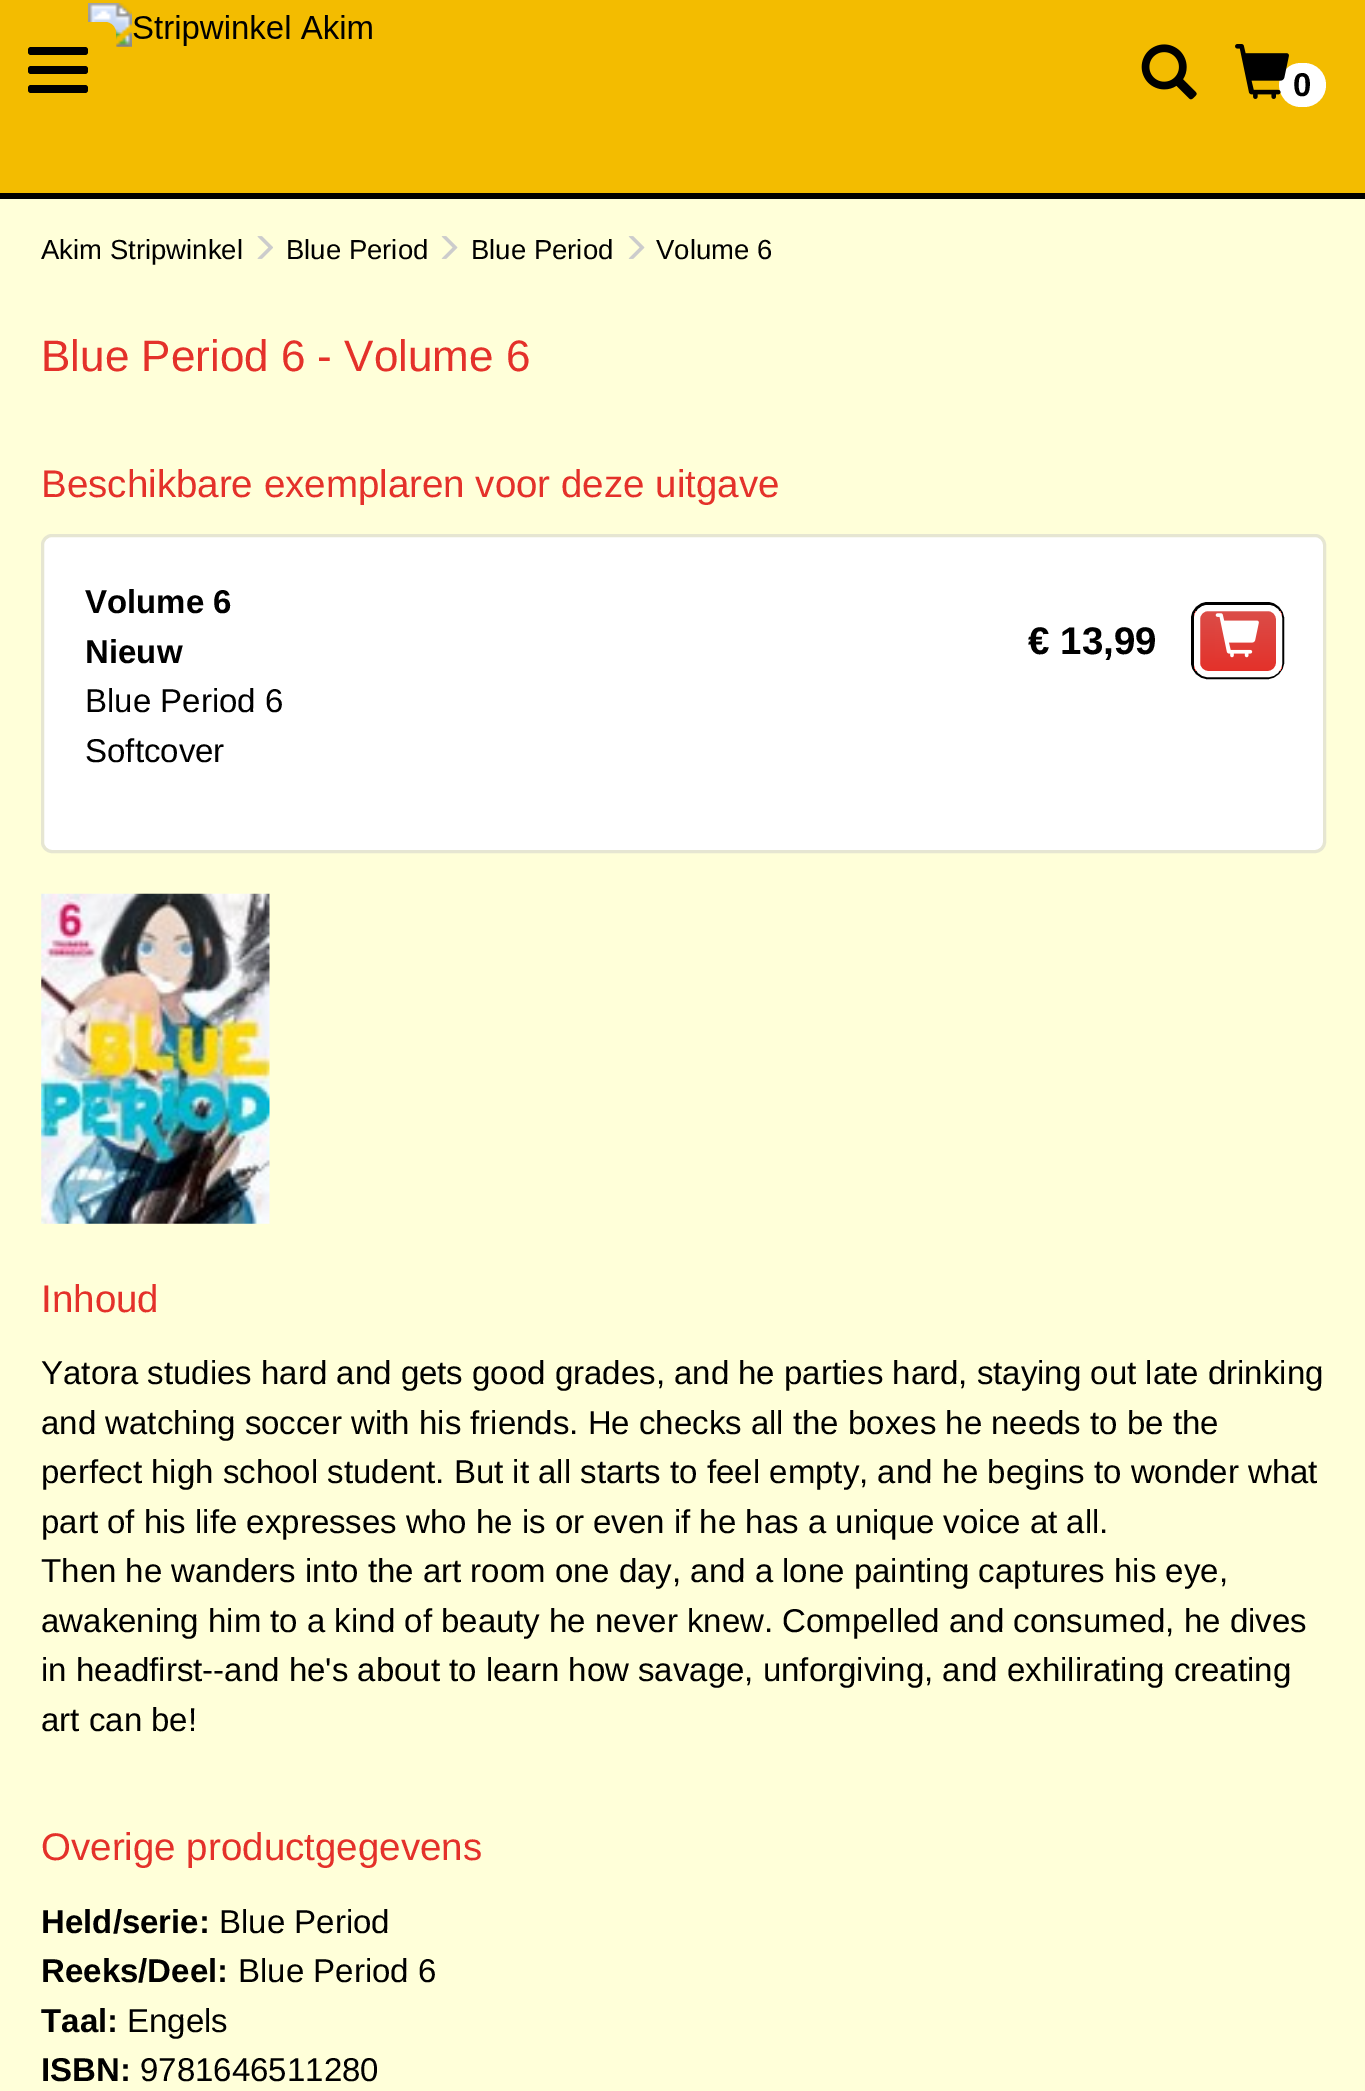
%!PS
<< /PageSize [1365 2091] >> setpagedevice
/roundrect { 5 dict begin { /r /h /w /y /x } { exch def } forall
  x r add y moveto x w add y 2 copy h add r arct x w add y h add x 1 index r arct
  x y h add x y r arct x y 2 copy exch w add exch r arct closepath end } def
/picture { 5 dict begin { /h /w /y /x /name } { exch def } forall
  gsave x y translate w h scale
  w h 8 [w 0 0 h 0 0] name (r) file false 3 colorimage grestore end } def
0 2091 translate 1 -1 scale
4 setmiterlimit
1 1 0.851 setrgbcolor
0 0 1365 2091 rectfill
0.953 0.737 0 setrgbcolor
0 0 1365 193 rectfill
0 setgray
0 193 1365 6 rectfill
(img1.rgb) 88 3 284 44 picture
0.953 0.737 0 setrgbcolor
0 22 116 96 11 roundrect fill
0 setgray
28 47 60 8 3 roundrect fill
28 66 60 8 3 roundrect fill
28 85 60 8 3 roundrect fill
(img2.rgb) 1141 44 56 56 picture
1 setgray
1279 63 47 44 22 roundrect fill
(img3.rgb) 1235 44 54 55 picture
/LiberationSans-Bold [33 0 0 -33 0 0] selectfont
0 setgray
1293 96 moveto (0) show
/LiberationSans-Regular [27.5 0 0 -27.5 0 0] selectfont
41 259 moveto (Akim Stripwinkel) show
(img4.rgb) 257 236 16 23 picture
286 259 moveto (Blue Period) show
(img5.rgb) 441 236 17 23 picture
471 259 moveto (Blue Period) show
(img5.rgb) 628 236 17 23 picture
656 259 moveto (Volume 6) show
/LiberationSans-Regular [44 0 0 -44 0 0] selectfont
0.894 0.192 0.165 setrgbcolor
41 371 moveto (Blue Period 6 - Volume 6) show
/LiberationSans-Regular [38.5 0 0 -38.5 0 0] selectfont
41 497 moveto (Beschikbare exemplaren voor deze uitgave) show
1 setgray
42.5 535.5 1282 316 9.5 roundrect gsave fill grestore
0.902 0.902 0.824 setrgbcolor
3 setlinewidth
stroke
/LiberationSans-Bold [33 0 0 -33 0 0] selectfont
0 setgray
85 613 moveto (Volume 6) show
85 663 moveto (Nieuw) show
/LiberationSans-Regular [33 0 0 -33 0 0] selectfont
85 712 moveto (Blue Period 6) show
85 762 moveto (Softcover) show
/LiberationSans-Bold [38.5 0 0 -38.5 0 0] selectfont
1028 654 moveto (€ 13,99) show
1192.5 603.5 90 74 15.5 roundrect stroke
gsave
1194 605 88 72 14 roundrect clip newpath
gsave newpath 1194 611 moveto 1282 611 lineto 1282 671 lineto 1194 671 lineto closepath clip newpath
<< /ShadingType 2 /ColorSpace /DeviceRGB /Coords [1238 611 1238 671] /Extend [true true] /Function << /FunctionType 3 /Domain [0 1] /Functions [<< /FunctionType 2 /Domain [0 1] /C0 [0.886 0.337 0.318] /C1 [0.886 0.337 0.318] /N 1 >> << /FunctionType 2 /Domain [0 1] /C0 [0.859 0.302 0.282] /C1 [0.894 0.192 0.165] /N 1 >>] /Bounds [0.01] /Encode [0 1 0 1] >> >> shfill grestore
grestore
1 setgray
6 setlinewidth
1197 608 82 66 11 roundrect stroke
(img6.rgb) 1215 613 44 45 picture
(img7.rgb) 41 893 229 331 picture
/LiberationSans-Regular [38.5 0 0 -38.5 0 0] selectfont
0.894 0.192 0.165 setrgbcolor
41 1312 moveto (Inhoud) show
/LiberationSans-Regular [33 0 0 -33 0 0] selectfont
0 setgray
41 1384 moveto (Yatora studies hard and gets good grades, and he parties hard, staying out late drinking) show
41 1434 moveto (and watching soccer with his friends. He checks all the boxes he needs to be the) show
41 1483 moveto (perfect high school student. But it all starts to feel empty, and he begins to wonder what) show
41 1533 moveto (part of his life expresses who he is or even if he has a unique voice at all.) show
41 1582 moveto (Then he wanders into the art room one day, and a lone painting captures his eye,) show
41 1632 moveto (awakening him to a kind of beauty he never knew. Compelled and consumed, he dives) show
41 1681 moveto (in headfirst--and he's about to learn how savage, unforgiving, and exhilirating creating) show
41 1731 moveto (art can be!) show
/LiberationSans-Regular [38.5 0 0 -38.5 0 0] selectfont
0.894 0.192 0.165 setrgbcolor
41 1860 moveto (Overige productgegevens) show
/LiberationSans-Bold [33 0 0 -33 0 0] selectfont
0 setgray
41 1933 moveto (Held/serie:) show
/LiberationSans-Regular [33 0 0 -33 0 0] selectfont
219 1933 moveto (Blue Period) show
/LiberationSans-Bold [33 0 0 -33 0 0] selectfont
41 1982 moveto (Reeks/Deel:) show
/LiberationSans-Regular [33 0 0 -33 0 0] selectfont
238 1982 moveto (Blue Period 6) show
/LiberationSans-Bold [33 0 0 -33 0 0] selectfont
41 2032 moveto (Taal:) show
/LiberationSans-Regular [33 0 0 -33 0 0] selectfont
127 2032 moveto (Engels) show
/LiberationSans-Bold [33 0 0 -33 0 0] selectfont
41 2081 moveto (ISBN:) show
/LiberationSans-Regular [33 0 0 -33 0 0] selectfont
140 2081 moveto (9781646511280) show
showpage
